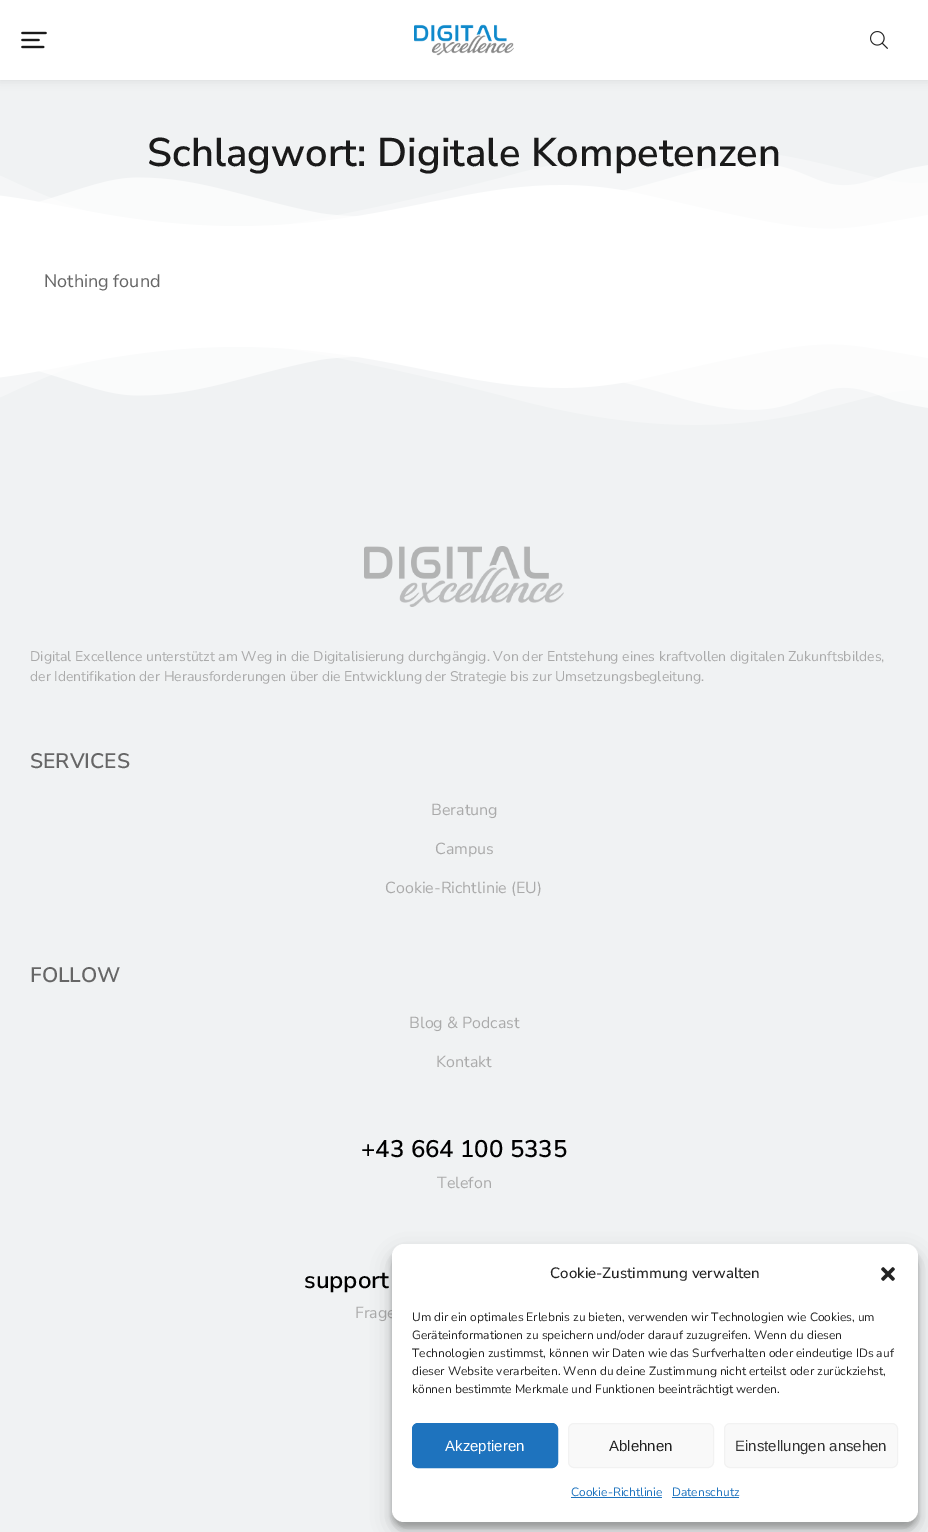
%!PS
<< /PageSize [928 1532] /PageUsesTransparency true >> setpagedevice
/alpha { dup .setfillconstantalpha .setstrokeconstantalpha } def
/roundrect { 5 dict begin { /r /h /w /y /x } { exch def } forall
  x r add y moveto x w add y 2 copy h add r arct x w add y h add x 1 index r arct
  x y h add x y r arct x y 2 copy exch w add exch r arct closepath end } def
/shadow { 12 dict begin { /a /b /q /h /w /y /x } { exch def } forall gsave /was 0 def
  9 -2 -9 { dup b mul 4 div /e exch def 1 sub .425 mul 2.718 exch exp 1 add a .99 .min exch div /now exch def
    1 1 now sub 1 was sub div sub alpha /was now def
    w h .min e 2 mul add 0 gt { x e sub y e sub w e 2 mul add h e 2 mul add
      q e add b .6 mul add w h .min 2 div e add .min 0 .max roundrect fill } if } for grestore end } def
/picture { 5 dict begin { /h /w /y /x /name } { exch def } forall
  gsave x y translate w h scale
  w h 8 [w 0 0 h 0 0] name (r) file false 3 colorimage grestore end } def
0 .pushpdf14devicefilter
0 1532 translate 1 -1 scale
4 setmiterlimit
1 setgray
0 0 928 1532 rectfill
0.941 0.949 0.953 setrgbcolor
0 80 928 149 rectfill
0 setgray
0 0 928 80 0 5 0.1 shadow
1 setgray
0 0 928 80 rectfill
(img1.rgb) 21 31 26 18 picture
(img2.rgb) 414 24 100 32 picture
(img3.rgb) 870 31 18 18 picture
(img4.rgb) 0 148 928 89 picture
/NunitoSans-SemiBold [40 0 0 -40 0 0] selectfont
0.102 setgray
147 166 moveto (Schlagwort: Digitale Kompetenzen) show
/NunitoSans-Regular [18 0 0 -18 0 0] selectfont
0.4 setgray
44 287 moveto (Nothing found) show
0.941 0.949 0.953 setrgbcolor
0 344 928 1188 rectfill
(img5.rgb) 0 336 928 89 picture
(img6.rgb) 364 546 200 61 picture
/NunitoSans-Regular [14 0 0 -14 0 0] selectfont
0.667 setgray
30 661 moveto (Digital Excellence unterstützt am Weg in die Digitalisierung durchgängig. Von der Entstehung eines kraftvollen digitalen Zukunftsbildes,) show
30 681 moveto (der Identifikation der Herausforderungen über die Entwicklung der Strategie bis zur Umsetzungsbegleitung.) show
/NunitoSans-SemiBold [21 0 0 -21 0 0] selectfont
0.4 setgray
30 768 moveto (SERVICES) show
/NunitoSans-Regular [16 0 0 -16 0 0] selectfont
0.667 setgray
431 815 moveto (Beratung) show
435 854 moveto (Campus) show
385 893 moveto (Cookie-Richtlinie \(EU\)) show
/NunitoSans-SemiBold [21 0 0 -21 0 0] selectfont
0.4 setgray
30 982 moveto (FOLLOW) show
/NunitoSans-Regular [16 0 0 -16 0 0] selectfont
0.667 setgray
409 1028 moveto (Blog & Podcast) show
436 1067 moveto (Kontakt) show
/NunitoSans-SemiBold [24 0 0 -24 0 0] selectfont
0 setgray
361 1157 moveto (+43 664 100 5335) show
/NunitoSans-Regular [16 0 0 -16 0 0] selectfont
0.667 setgray
437 1188 moveto (Telefon) show
/NunitoSans-SemiBold [24 0 0 -24 0 0] selectfont
0 setgray
304 1288 moveto (support) show
/NunitoSans-Regular [16 0 0 -16 0 0] selectfont
0.667 setgray
355 1318 moveto (Frage) show
0 setgray
392 1250 526 278 12 3 0.23 shadow
392 1254 526 278 12 10 0.19 shadow
1 setgray
392 1244 526 278 12 roundrect fill
/NunitoSans-Medium [15 0 0 -15 0 0] selectfont
0.133 setgray
550 1278 moveto (Cookie-Zustimmung verwalten) show
(img7.rgb) 881 1267 14 14 picture
/NunitoSans-Regular [12 0 0 -12 0 0] selectfont
412 1321 moveto (Um dir ein optimales Erlebnis zu bieten, verwenden wir Technologien wie Cookies, um) show
412 1339 moveto (Geräteinformationen zu speichern und/oder darauf zuzugreifen. Wenn du diesen) show
412 1357 moveto (Technologien zustimmst, können wir Daten wie das Surfverhalten oder eindeutige IDs auf) show
412 1375 moveto (dieser Website verarbeiten. Wenn du deine Zustimmung nicht erteilst oder zurückziehst,) show
412 1393 moveto (können bestimmte Merkmale und Funktionen beeinträchtigt werden.) show
0.118 0.451 0.745 setrgbcolor
412.5 1423.5 145 44 5.5 roundrect gsave fill grestore
stroke
/LiberationSans-Regular [15 0 0 -15 0 0] selectfont
1 setgray
445 1451 moveto (Akzeptieren) show
0.976 setgray
568.5 1423.5 145 44 5.5 roundrect gsave fill grestore
0.949 setgray
stroke
0.133 setgray
609 1451 moveto (Ablehnen) show
0.976 setgray
724.5 1423.5 173 44 5.5 roundrect gsave fill grestore
0.949 setgray
stroke
0.2 setgray
735 1451 moveto (Einstellungen ansehen) show
/NunitoSans-Regular [12 0 0 -12 0 0] selectfont
0.118 0.451 0.745 setrgbcolor
571 1496 moveto (Cookie-Richtlinie) show
571 1497 91 1 rectfill
672 1496 moveto (Datenschutz) show
672 1497 67 1 rectfill
.poppdf14devicefilter showpage
